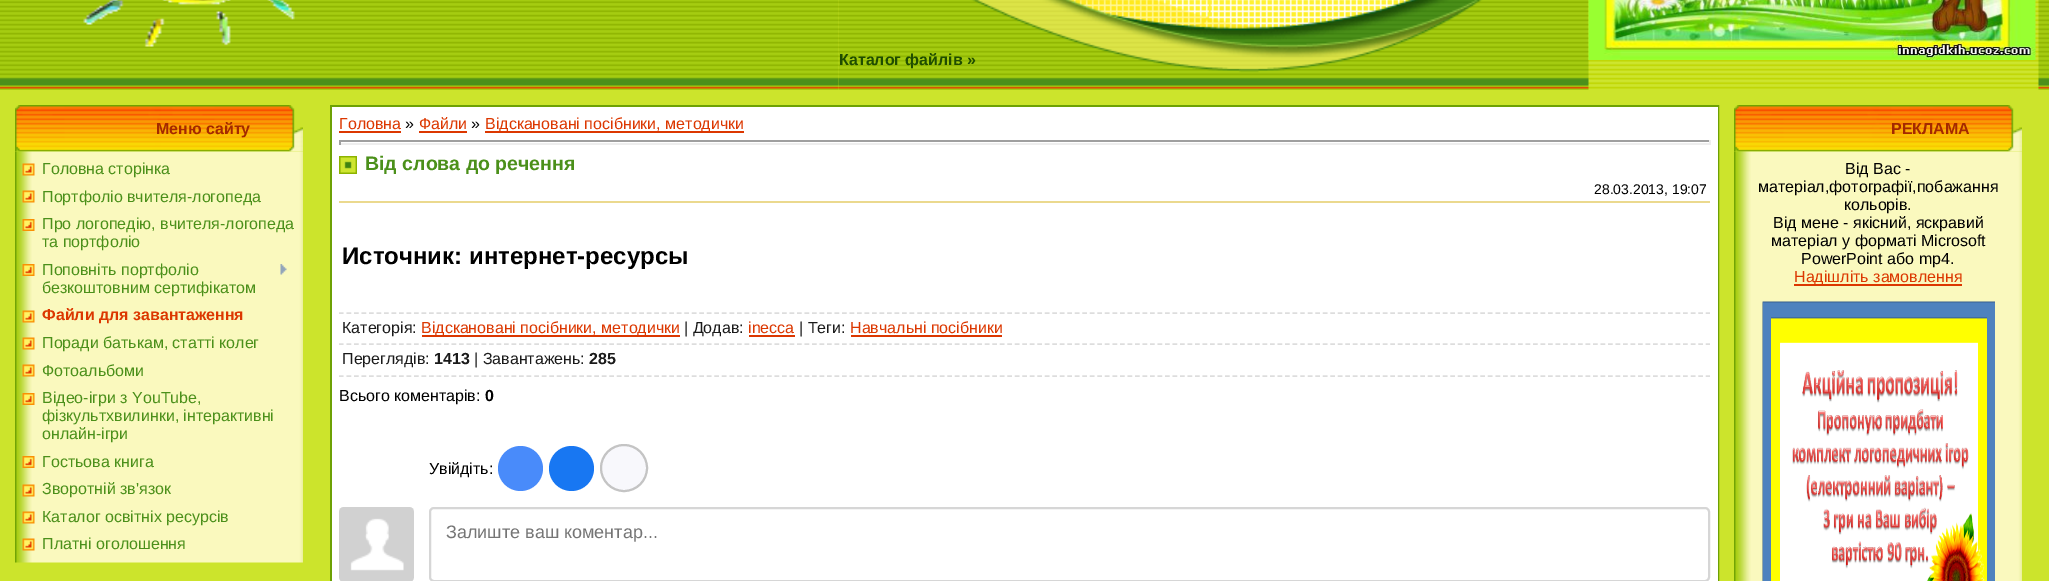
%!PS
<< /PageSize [2049 581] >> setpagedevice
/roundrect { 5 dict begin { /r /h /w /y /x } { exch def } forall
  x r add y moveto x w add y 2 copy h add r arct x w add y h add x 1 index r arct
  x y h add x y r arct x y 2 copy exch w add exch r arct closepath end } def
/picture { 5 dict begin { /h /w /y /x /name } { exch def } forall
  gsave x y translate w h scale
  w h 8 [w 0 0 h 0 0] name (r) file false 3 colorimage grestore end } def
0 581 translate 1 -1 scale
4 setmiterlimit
0.8 0.894 0.173 setrgbcolor
0 0 2049 581 rectfill
(img1.rgb) 838 1 1201 88 picture
(img2.rgb) 0 0 839 90 picture
(img3.rgb) 83 0 212 47 picture
(img6.rgb) 838 0 751 90 picture
(img4.rgb) 1588 0 448 60 picture
(img5.rgb) 2038 0 11 90 picture
/LiberationSans-Bold [16 0 0 -16 0 0] selectfont
0.122 0.302 0 setrgbcolor
839 65 moveto (Каталог файлів ») show
(img7.rgb) 15 105 288 47 picture
0.643 0.161 0 setrgbcolor
156 134 moveto (Меню сайту) show
(img8.rgb) 15 151 288 412 picture
(img9.rgb) 22 163 13 13 picture
/LiberationSans-Regular [16 0 0 -16 0 0] selectfont
0.294 0.565 0.102 setrgbcolor
42 174 moveto (Головна сторінка) show
(img9.rgb) 22 190 13 13 picture
42 202 moveto (Портфоліо вчителя-логопеда) show
(img10.rgb) 22 219 13 12 picture
42 229 moveto (Про логопедію, вчителя-логопеда) show
42 247 moveto (та портфоліо) show
(img10.rgb) 22 264 13 12 picture
42 275 moveto (Поповніть портфоліо) show
(img11.rgb) 280 264 7 11 picture
42 293 moveto (безкоштовним сертифікатом) show
(img9.rgb) 22 310 13 13 picture
/LiberationSans-Bold [16 0 0 -16 0 0] selectfont
0.863 0.216 0 setrgbcolor
42 320 moveto (Файли для завантаження) show
(img9.rgb) 22 337 13 13 picture
/LiberationSans-Regular [16 0 0 -16 0 0] selectfont
0.294 0.565 0.102 setrgbcolor
42 348 moveto (Поради батькам, статті колег) show
(img9.rgb) 22 364 13 13 picture
42 376 moveto (Фотоальбоми) show
(img10.rgb) 22 393 13 12 picture
42 403 moveto (Відео-ігри з YouTube,) show
42 421 moveto (фізкультхвилинки, інтерактивні) show
42 439 moveto (онлайн-ігри) show
(img10.rgb) 22 456 13 12 picture
42 467 moveto (Гостьова книга) show
(img9.rgb) 22 484 13 13 picture
42 494 moveto (Зворотній зв'язок) show
(img9.rgb) 22 511 13 13 picture
42 522 moveto (Каталог освітніх ресурсів) show
(img9.rgb) 22 538 13 13 picture
42 549 moveto (Платні оголошення) show
0.427 0.631 0.016 setrgbcolor
2 setlinewidth
331 106 1387 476 rectstroke
1 setgray
332 107 1386 474 rectfill
0.863 0.216 0 setrgbcolor
339 129 moveto (Головна) show
339 131 62 2 rectfill
0 setgray
405 129 moveto (») show
0.863 0.216 0 setrgbcolor
419 129 moveto (Файли) show
419 131 48 2 rectfill
0 setgray
471 129 moveto (») show
0.863 0.216 0 setrgbcolor
485 131 259 2 rectfill
485 129 moveto (Відскановані посібники, методички) show
0.624 setgray
339 140 1371 2 rectfill
0.933 setgray
1709 140 2 5 rectfill
339 143 1371 2 rectfill
0.624 setgray
339 140 2 5 rectfill
(img12.rgb) 339 156 18 18 picture
/LiberationSans-Bold [19.5 0 0 -19.5 0 0] selectfont
0.294 0.565 0.102 setrgbcolor
365 170 moveto (Від слова до речення) show
/LiberationSans-Regular [14 0 0 -14 0 0] selectfont
0 setgray
1594 194 moveto (28.03.2013, 19:07) show
0.922 0.851 0.557 setrgbcolor
339 201 1371 2 rectfill
/LiberationSans-Bold [24 0 0 -24 0 0] selectfont
0 setgray
342 264 moveto (Источник: интернет-ресурсы) show
0.867 setgray
1.5 setlinewidth
[4.5 3.01] 0 setdash
newpath 339 313 moveto 1710 313 lineto stroke
newpath 339 344 moveto 1710 344 lineto stroke
/LiberationSans-Regular [16 0 0 -16 0 0] selectfont
0.102 setgray
342 333 moveto (Категорія:) show
0.863 0.216 0 setrgbcolor
422 335 258 2 rectfill
421 333 moveto (Відскановані посібники, методички) show
0.102 setgray
684 333 moveto (| Додав:) show
0.863 0.216 0 setrgbcolor
748 333 moveto (inecca) show
749 335 46 2 rectfill
0.102 setgray
799 333 moveto (| Теги:) show
0.863 0.216 0 setrgbcolor
850 333 moveto (Навчальні посібники) show
851 335 151 2 rectfill
0.867 setgray
newpath 339 376 moveto 1710 376 lineto stroke
0.102 setgray
342 364 moveto (Переглядів:) show
/LiberationSans-Bold [16 0 0 -16 0 0] selectfont
434 364 moveto (1413) show
/LiberationSans-Regular [16 0 0 -16 0 0] selectfont
474 364 moveto (| Завантажень:) show
/LiberationSans-Bold [16 0 0 -16 0 0] selectfont
589 364 moveto (285) show
/LiberationSans-Regular [16 0 0 -16 0 0] selectfont
0 setgray
339 401 moveto (Всього коментарів:) show
/LiberationSans-Bold [16 0 0 -16 0 0] selectfont
485 401 moveto (0) show
/LiberationSans-Regular [16 0 0 -16 0 0] selectfont
429 474 moveto (Увійдіть:) show
0.286 0.545 0.98 setrgbcolor
newpath 520.5 468.5 22.5 0 360 arc closepath fill
0.094 0.467 0.949 setrgbcolor
newpath 571.5 468.5 22.5 0 360 arc closepath fill
0.973 0.973 0.988 setrgbcolor
newpath 624 468 23 0 360 arc closepath gsave fill grestore
0.769 setgray
2 setlinewidth
[] 0 setdash
stroke
(img13.rgb) 339 507 75 74 picture
0.839 setgray
430 508 1279 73 4 roundrect stroke
/LiberationSans-Regular [18 0 0 -18 0 0] selectfont
0.459 setgray
446 538 moveto (Залиште ваш коментар...) show
(img7.rgb) 1734 105 288 47 picture
/LiberationSans-Bold [16 0 0 -16 0 0] selectfont
0.643 0.161 0 setrgbcolor
1891 134 moveto (РЕКЛАМА) show
(img14.rgb) 1734 151 288 430 picture
/LiberationSans-Regular [16 0 0 -16 0 0] selectfont
0 setgray
1845 174 moveto (Від Вас -) show
1758 192 moveto (матеріал,фотографії,побажання) show
1844 210 moveto (кольорів.) show
1773 228 moveto (Від мене - якісний, яскравий) show
1771 246 moveto (матеріал у форматі Microsoft) show
1801 264 moveto (PowerPoint або mp4.) show
0.863 0.216 0 setrgbcolor
1794 284 168 2 rectfill
1794 282 moveto (Надішліть замовлення) show
(img15.rgb) 1762 301 233 280 picture
showpage
